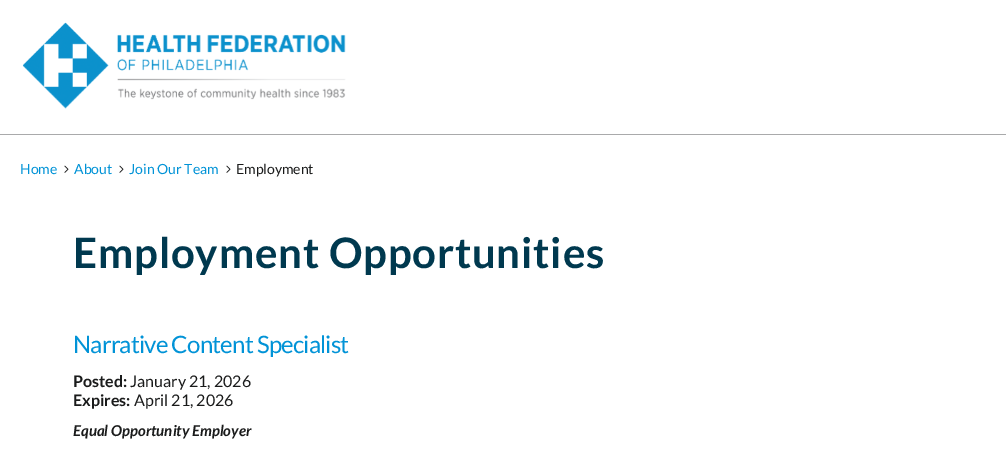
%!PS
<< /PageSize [1006 452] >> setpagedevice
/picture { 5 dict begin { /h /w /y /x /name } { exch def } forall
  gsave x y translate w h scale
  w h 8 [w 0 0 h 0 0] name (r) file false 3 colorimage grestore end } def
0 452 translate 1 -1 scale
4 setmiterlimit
1 setgray
0 0 1006 452 rectfill
0.663 0.667 0.671 setrgbcolor
0 134 1006 1 rectfill
(img1.rgb) 22 22 324 87 picture
/Lato-Regular [14 0 0 -14 0 0] selectfont
0.004 0.576 0.843 setrgbcolor
20 174 moveto (Home) show
(img2.rgb) 64 165 5 8 picture
74 174 moveto (About) show
(img2.rgb) 119 165 5 8 picture
129 174 moveto (Join Our Team) show
(img2.rgb) 226 165 5 8 picture
0.102 0.106 0.106 setrgbcolor
236 174 moveto (Employment) show
/Lato-Bold [42 0 0 -42 0 0] selectfont
0 0.224 0.31 setrgbcolor
73 268 moveto 0.8 0 (Employment Opportunities) ashow
/Lato-Regular [24 0 0 -24 0 0] selectfont
0.004 0.576 0.843 setrgbcolor
73 353 moveto -0.8 0 (Narrative Content Specialist) ashow
/Lato-Bold [16 0 0 -16 0 0] selectfont
0.102 0.106 0.106 setrgbcolor
73 387 moveto (Posted:) show
/Lato-Regular [16 0 0 -16 0 0] selectfont
130 387 moveto (January 21, 2026) show
/Lato-Bold [16 0 0 -16 0 0] selectfont
73 406 moveto (Expires:) show
/Lato-Regular [16 0 0 -16 0 0] selectfont
134 406 moveto (April 21, 2026) show
/Lato-BoldItalic [15 0 0 -15 0 0] selectfont
73 436 moveto (Equal Opportunity Employer) show
showpage
